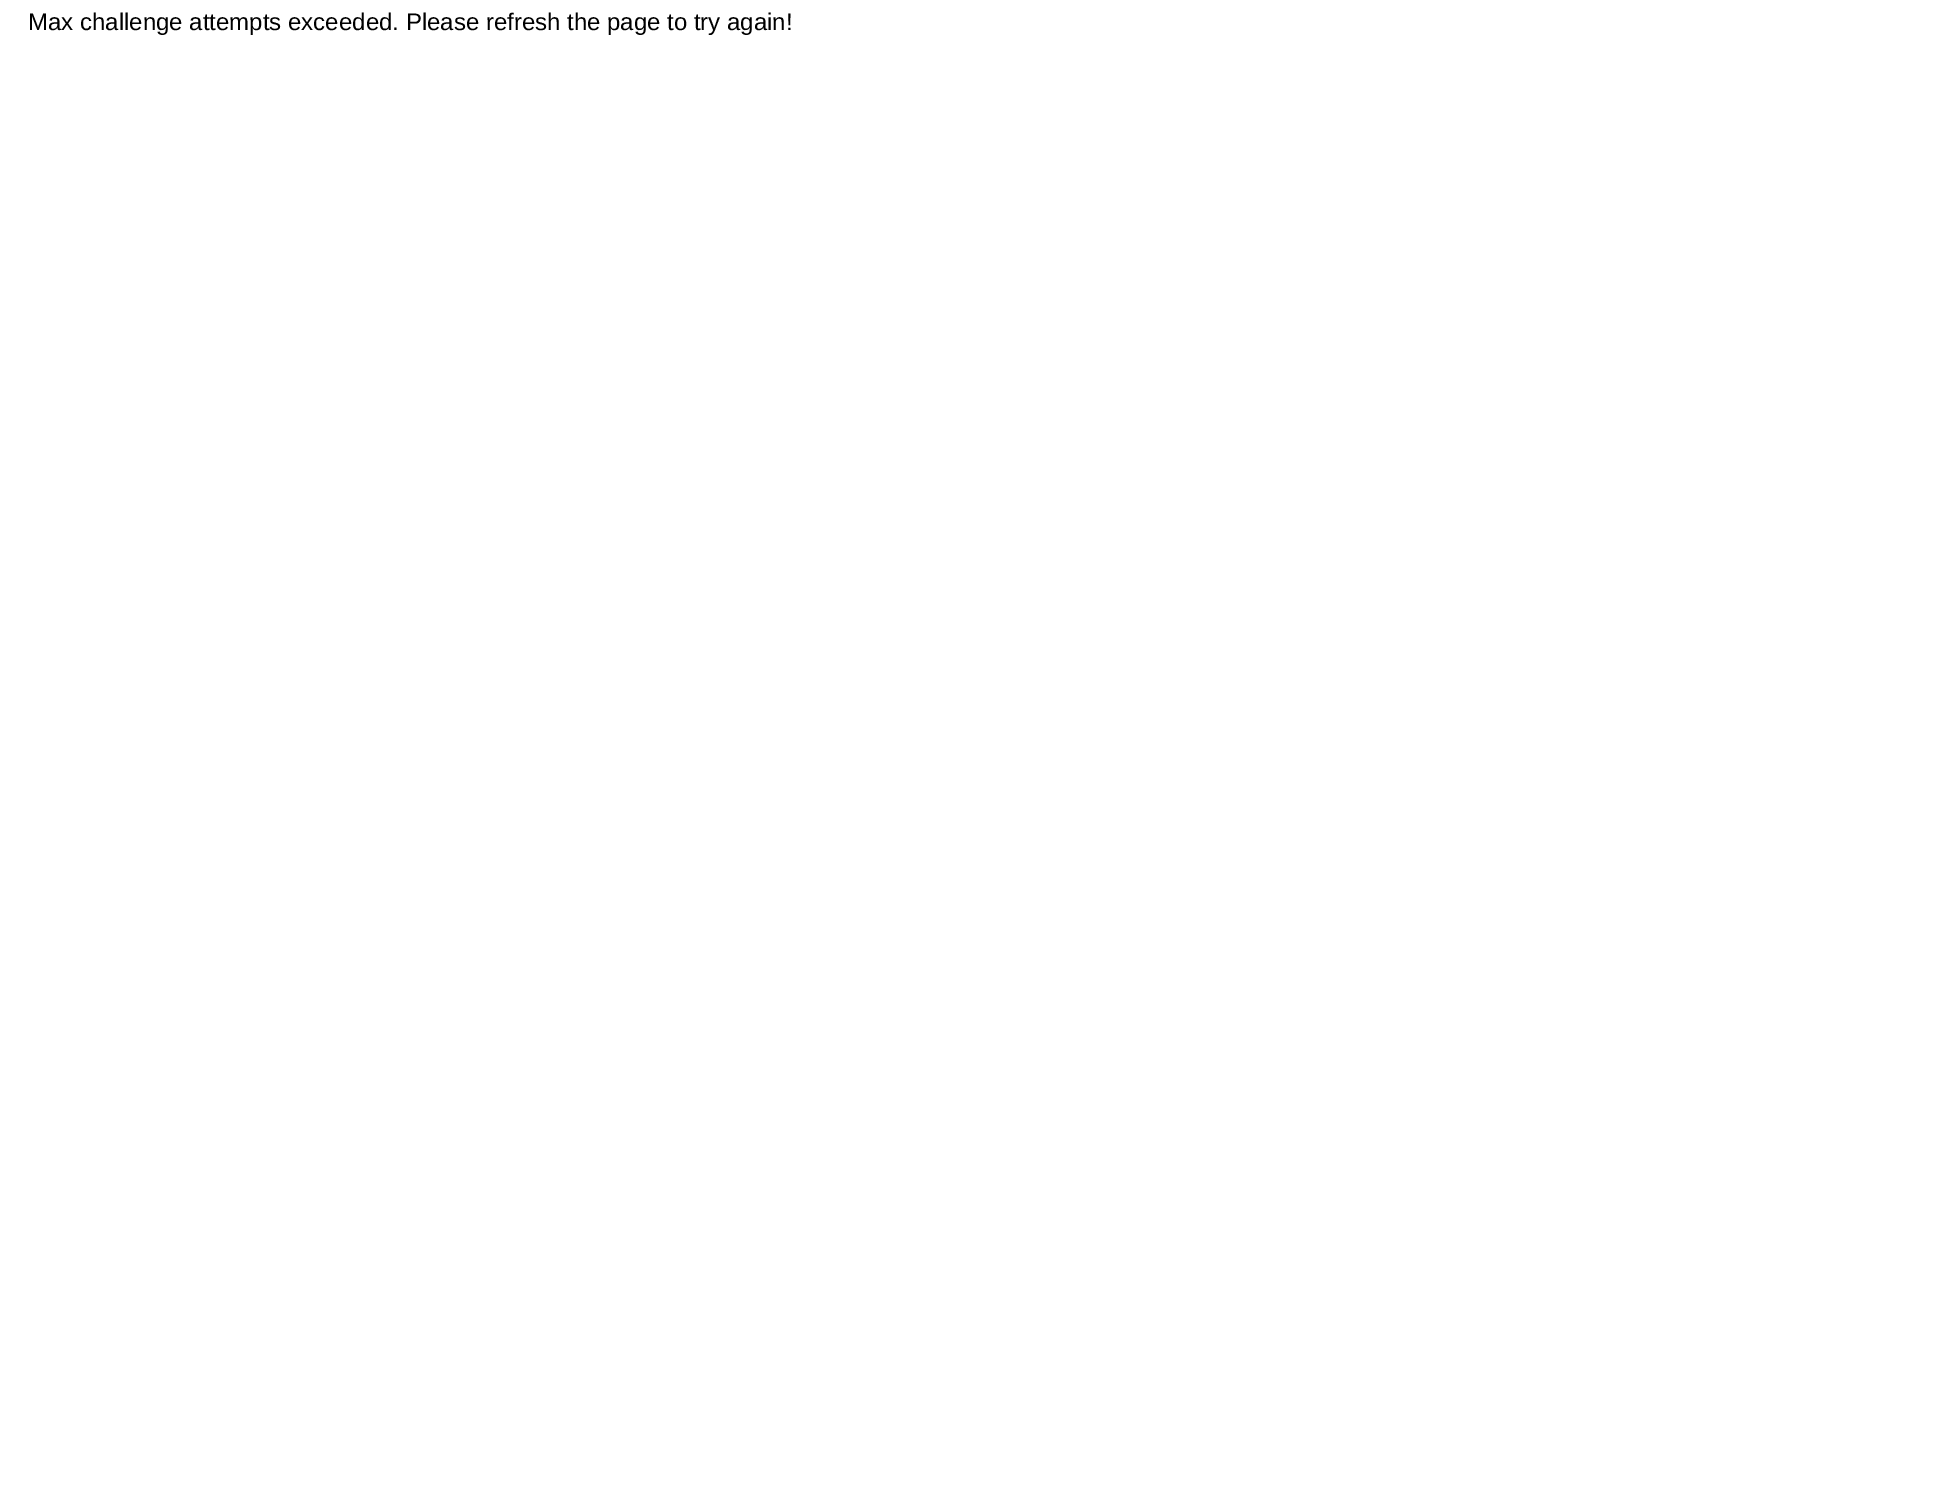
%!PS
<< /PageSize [1950 1487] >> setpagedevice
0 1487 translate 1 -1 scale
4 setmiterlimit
1 setgray
0 0 1950 1487 rectfill
/LiberationSans-Regular [24 0 0 -24 0 0] selectfont
0 setgray
28 30 moveto (Max challenge attempts exceeded. Please refresh the page to try again!) show
showpage
